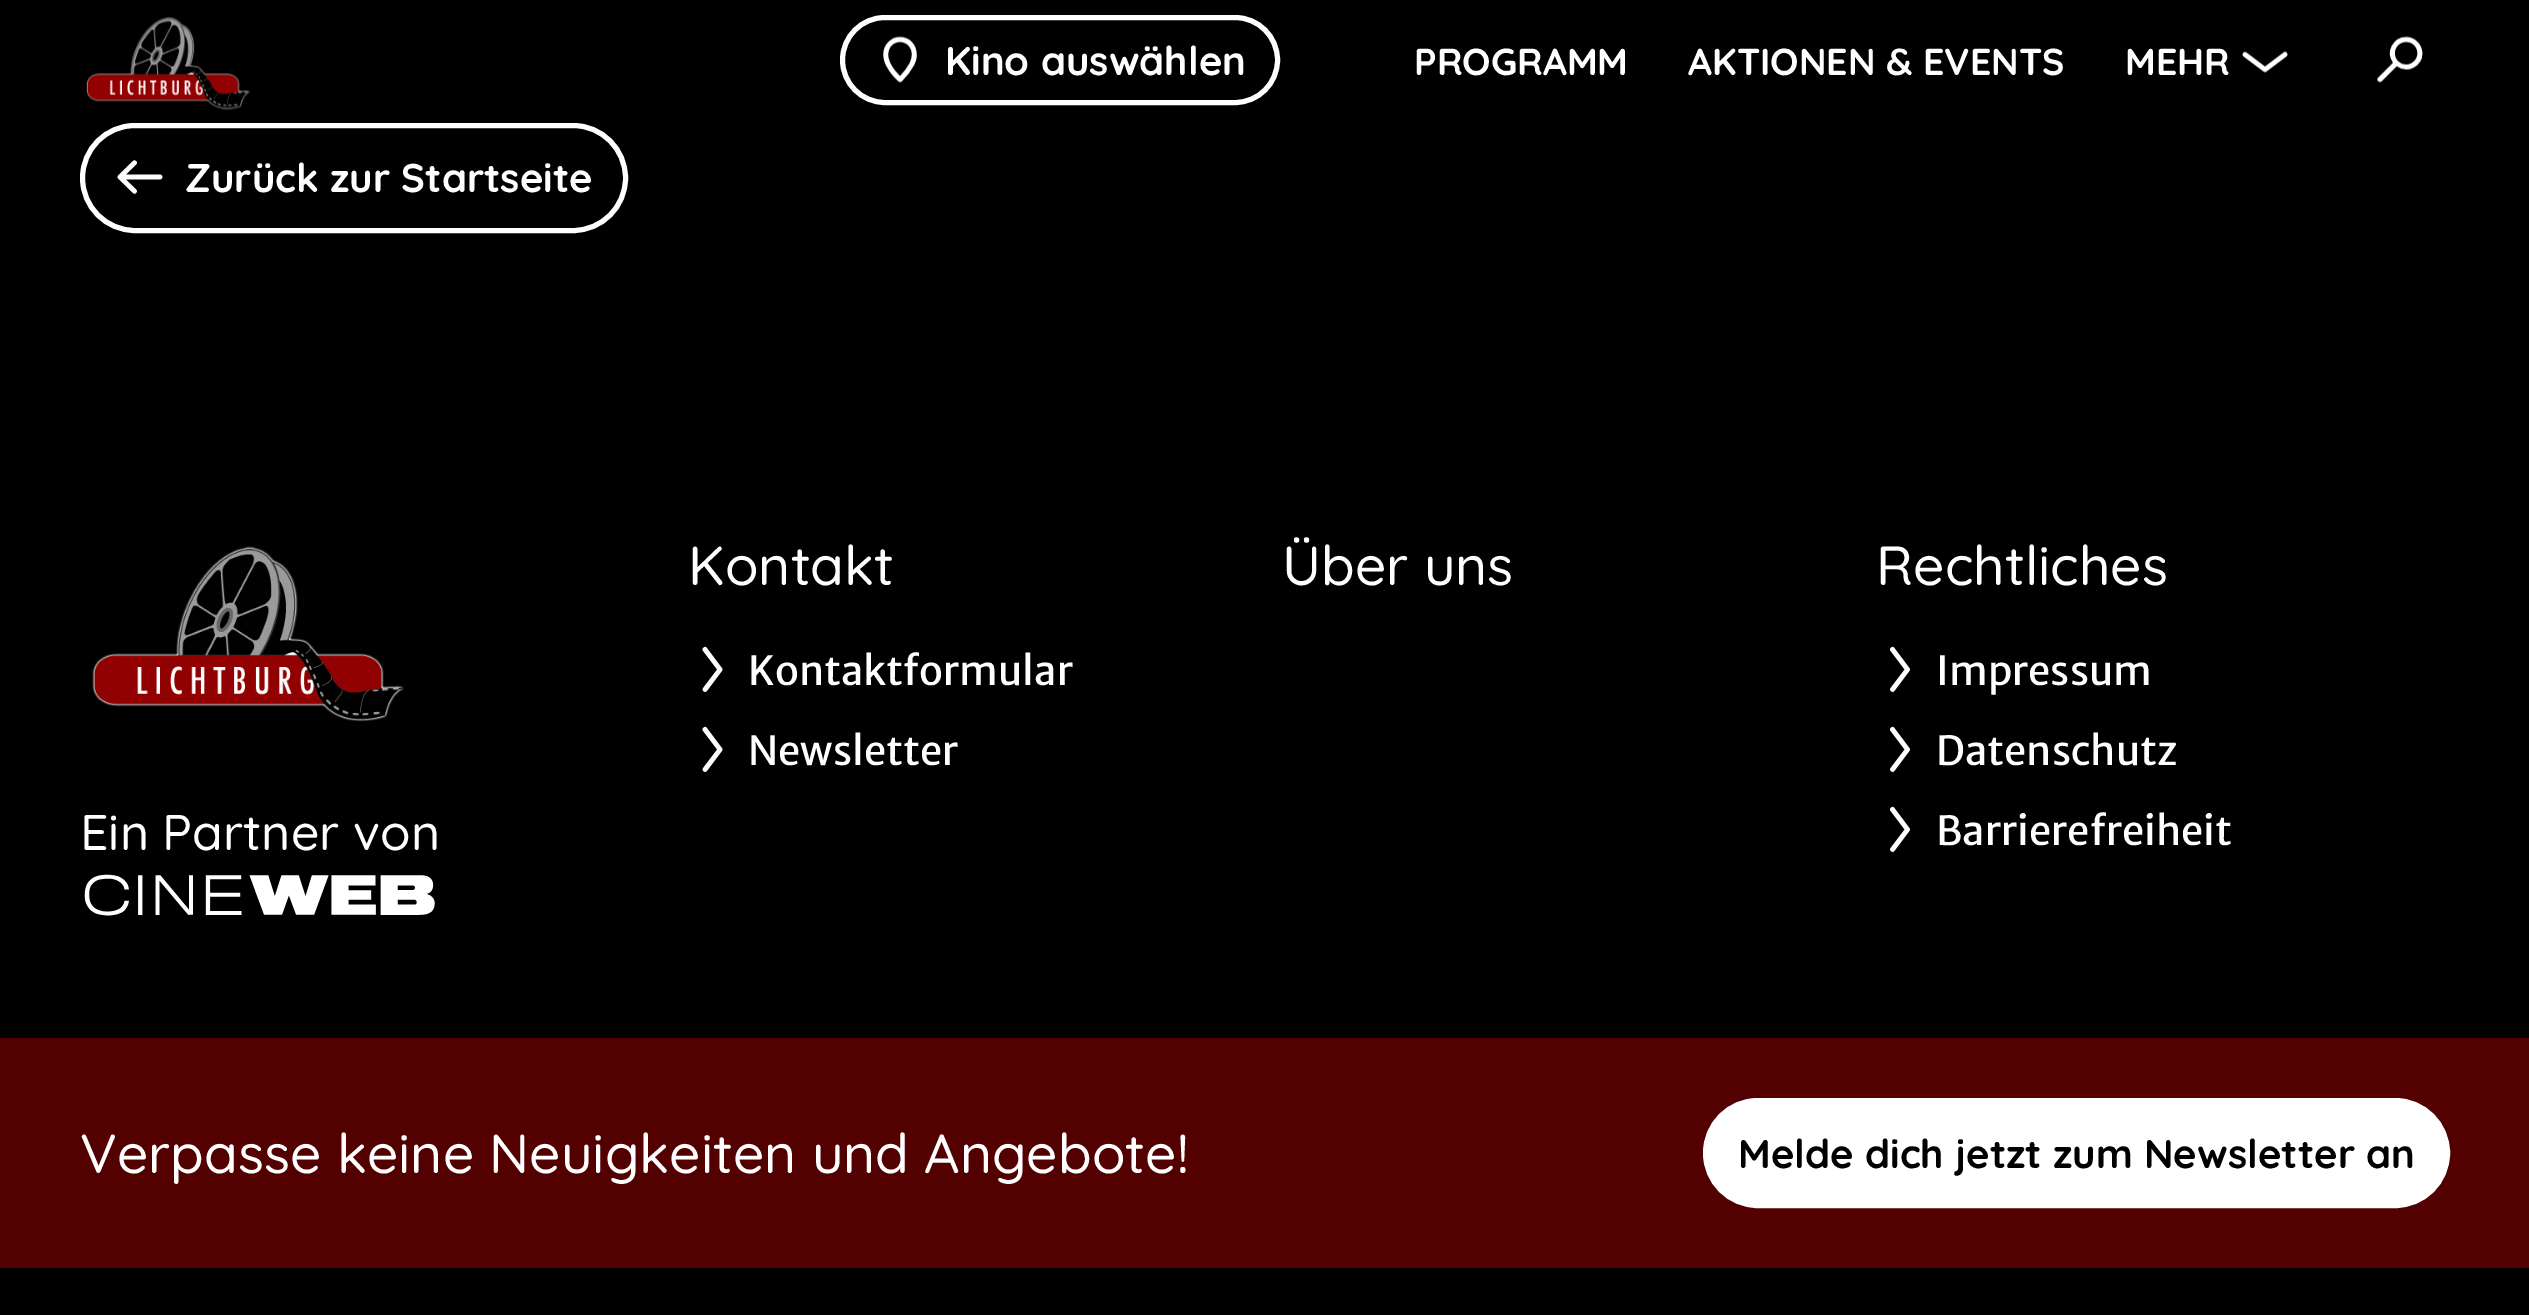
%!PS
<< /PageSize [2529 1315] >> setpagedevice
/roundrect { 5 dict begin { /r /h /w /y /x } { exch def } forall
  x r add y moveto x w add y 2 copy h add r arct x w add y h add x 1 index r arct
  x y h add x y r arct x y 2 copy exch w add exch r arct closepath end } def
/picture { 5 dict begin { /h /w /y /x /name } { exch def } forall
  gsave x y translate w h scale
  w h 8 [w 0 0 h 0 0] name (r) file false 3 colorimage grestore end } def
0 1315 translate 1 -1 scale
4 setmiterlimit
0 setgray
0 0 2529 1315 rectfill
(img1.rgb) 86 17 164 93 picture
1 setgray
5 setlinewidth
842.5 17.5 435 85 42.5 roundrect stroke
(img2.rgb) 883 36 34 47 picture
/Quicksand-Light [40 0 0 -40 0 0] selectfont
945 75 moveto (Kino auswählen) show
/Quicksand-Light [37.5 0 0 -37.5 0 0] selectfont
1414 75 moveto (PROGRAMM) show
1688 75 moveto (AKTIONEN & EVENTS) show
2125 75 moveto (MEHR) show
(img3.rgb) 2242 51 46 22 picture
(img4.rgb) 2377 36 46 47 picture
82.5 125.5 543 105 52.5 roundrect stroke
(img5.rgb) 117 160 46 34 picture
/Quicksand-Light [40 0 0 -40 0 0] selectfont
185 192 moveto (Zurück zur Startseite) show
(img6.rgb) 92 546 312 176 picture
/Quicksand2-Light [50 0 0 -50 0 0] selectfont
80 850 moveto (Ein Partner von) show
(img7.rgb) 84 874 351 42 picture
/Quicksand2-Light [55 0 0 -55 0 0] selectfont
688 585 moveto (Kontakt) show
(img8.rgb) 702 646 21 46 picture
/MerriweatherSans-Regular [40 0 0 -40 0 0] selectfont
748 685 moveto (Kontaktformular) show
(img8.rgb) 702 726 21 46 picture
748 765 moveto (Newsletter) show
/Quicksand2-Light [55 0 0 -55 0 0] selectfont
1282 585 moveto (Über uns) show
1876 585 moveto (Rechtliches) show
(img9.rgb) 1889 646 21 46 picture
/MerriweatherSans-Regular [40 0 0 -40 0 0] selectfont
1936 685 moveto (Impressum) show
(img9.rgb) 1889 726 21 46 picture
1936 765 moveto (Datenschutz) show
(img9.rgb) 1889 806 21 46 picture
1936 845 moveto (Barrierefreiheit) show
0.322 0 0 setrgbcolor
0 1038 2529 230 rectfill
/Quicksand2-Light [55 0 0 -55 0 0] selectfont
1 setgray
80 1173 moveto (Verpasse keine Neuigkeiten und Angebote!) show
1705.5 1100.5 742 105 52.5 roundrect gsave fill grestore
stroke
/Quicksand-Light [40 0 0 -40 0 0] selectfont
0 setgray
1738 1168 moveto (Melde dich jetzt zum Newsletter an) show
showpage
